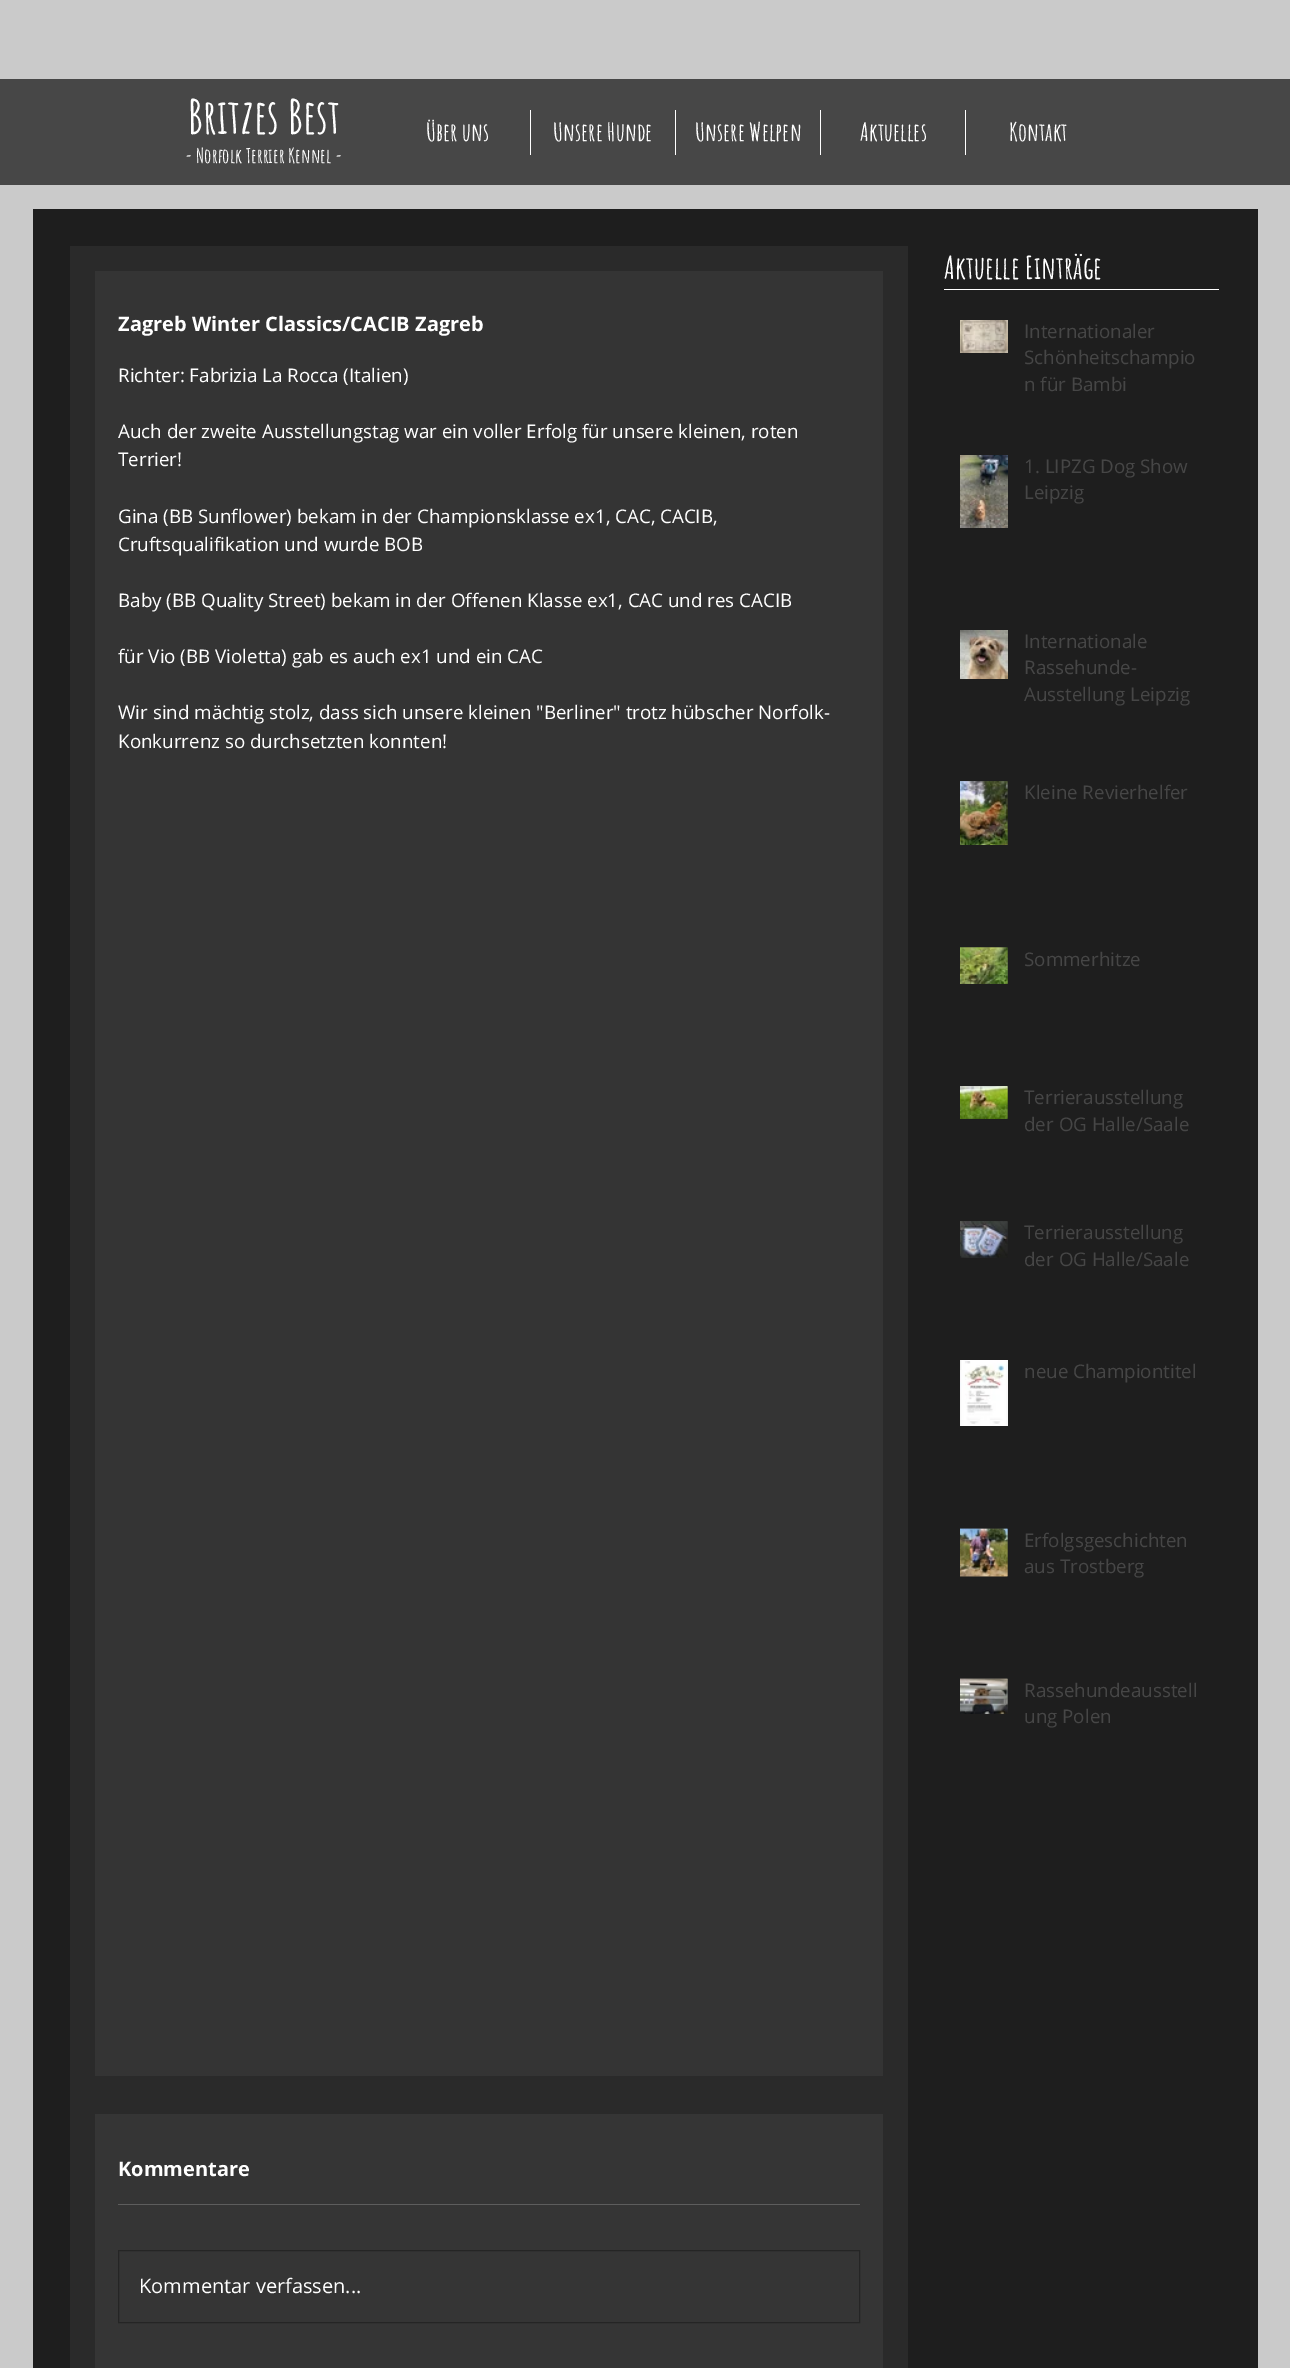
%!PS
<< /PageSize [1290 2368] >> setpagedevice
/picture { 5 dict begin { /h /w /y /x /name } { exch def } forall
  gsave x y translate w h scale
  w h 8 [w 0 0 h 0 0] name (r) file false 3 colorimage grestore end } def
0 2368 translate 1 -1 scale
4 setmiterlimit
0.792 setgray
0 0 1290 2368 rectfill
0.278 setgray
0 79 1290 106 rectfill
/AmaticSC-Bold [47.5 0 0 -47.5 0 0] selectfont
1 setgray
188 134 moveto (Britzes Best) show
/AmaticSC-Bold [20 0 0 -20 0 0] selectfont
185 163 moveto (- Norfolk Terrier Kennel -) show
/AmaticSC-Bold [25 0 0 -25 0 0] selectfont
426 141 moveto (Über uns) show
530 110 1 45 rectfill
553 141 moveto (Unsere Hunde) show
675 110 1 45 rectfill
695 141 moveto (Unsere Welpen) show
820 110 1 45 rectfill
860 141 moveto (Aktuelles) show
965 110 1 45 rectfill
1009 141 moveto (Kontakt) show
0.118 setgray
33 209 1225 2159 rectfill
/AmaticSC-Bold [31.25 0 0 -31.25 0 0] selectfont
1 setgray
944 279 moveto (Aktuelle Einträge) show
944 289 275 1 rectfill
0.165 setgray
70 246 838 2122 rectfill
0.204 setgray
95 271 788 1805 rectfill
/OpenSans-Bold [20 0 0 -20 0 0] selectfont
1 setgray
118 331 moveto (Zagreb Winter Classics/CACIB Zagreb) show
/OpenSans-Regular [18.75 0 0 -18.75 0 0] selectfont
118 382 moveto (Richter: Fabrizia La Rocca \(Italien\)) show
118 438 moveto (Auch der zweite Ausstellungstag war ein voller Erfolg für unsere kleinen, roten) show
118 466 moveto (Terrier!) show
118 523 moveto (Gina \(BB Sunflower\) bekam in der Championsklasse ex1, CAC, CACIB,) show
118 551 moveto (Cruftsqualifikation und wurde BOB) show
118 607 moveto (Baby \(BB Quality Street\) bekam in der Offenen Klasse ex1, CAC und res CACIB) show
118 663 moveto (für Vio \(BB Violetta\) gab es auch ex1 und ein CAC) show
118 719 moveto (Wir sind mächtig stolz, dass sich unsere kleinen "Berliner" trotz hübscher Norfolk-) show
118 748 moveto (Konkurrenz so durchsetzten konnten!) show
0.208 setgray
95 2114 788 254 rectfill
/OpenSans-Bold [20 0 0 -20 0 0] selectfont
1 setgray
118 2176 moveto (Kommentare) show
0.365 setgray
118 2204 742 1 rectfill
0.145 setgray
118.5 2250.5 741 72 rectstroke
/OpenSans-Regular [20 0 0 -20 0 0] selectfont
1 setgray
139 2293 moveto (Kommentar verfassen...) show
(img1.rgb) 960 320 48 33 picture
/OpenSans-Regular [18.75 0 0 -18.75 0 0] selectfont
0.275 setgray
1024 338 moveto (Internationaler) show
1024 364 moveto (Schönheitschampio) show
1024 391 moveto (n für Bambi) show
(img2.rgb) 960 455 48 73 picture
1024 473 moveto (1. LIPZG Dog Show) show
1024 499 moveto (Leipzig) show
(img3.rgb) 960 630 48 49 picture
1024 648 moveto (Internationale) show
1024 674 moveto (Rassehunde-) show
1024 701 moveto (Ausstellung Leipzig) show
(img4.rgb) 960 781 48 64 picture
(img5.rgb) 960 781 48 64 picture
1024 799 moveto (Kleine Revierhelfer) show
0.2 setgray
970 958 38 26 rectfill
(img6.rgb) 960 947 48 37 picture
(img7.rgb) 960 947 48 37 picture
0.275 setgray
1024 966 moveto (Sommerhitze) show
(img8.rgb) 960 1086 48 33 picture
(img9.rgb) 960 1086 48 33 picture
1024 1104 moveto (Terrierausstellung) show
1024 1131 moveto (der OG Halle/Saale) show
(img10.rgb) 960 1221 48 37 picture
(img11.rgb) 960 1221 48 37 picture
1024 1239 moveto (Terrierausstellung) show
1024 1266 moveto (der OG Halle/Saale) show
(img12.rgb) 960 1360 48 66 picture
1024 1378 moveto (neue Championtitel) show
(img13.rgb) 960 1528 48 49 picture
(img14.rgb) 960 1528 48 49 picture
1024 1547 moveto (Erfolgsgeschichten) show
1024 1573 moveto (aus Trostberg) show
(img15.rgb) 960 1678 48 36 picture
(img16.rgb) 960 1678 48 36 picture
1024 1697 moveto (Rassehundeausstell) show
1024 1723 moveto (ung Polen) show
showpage
